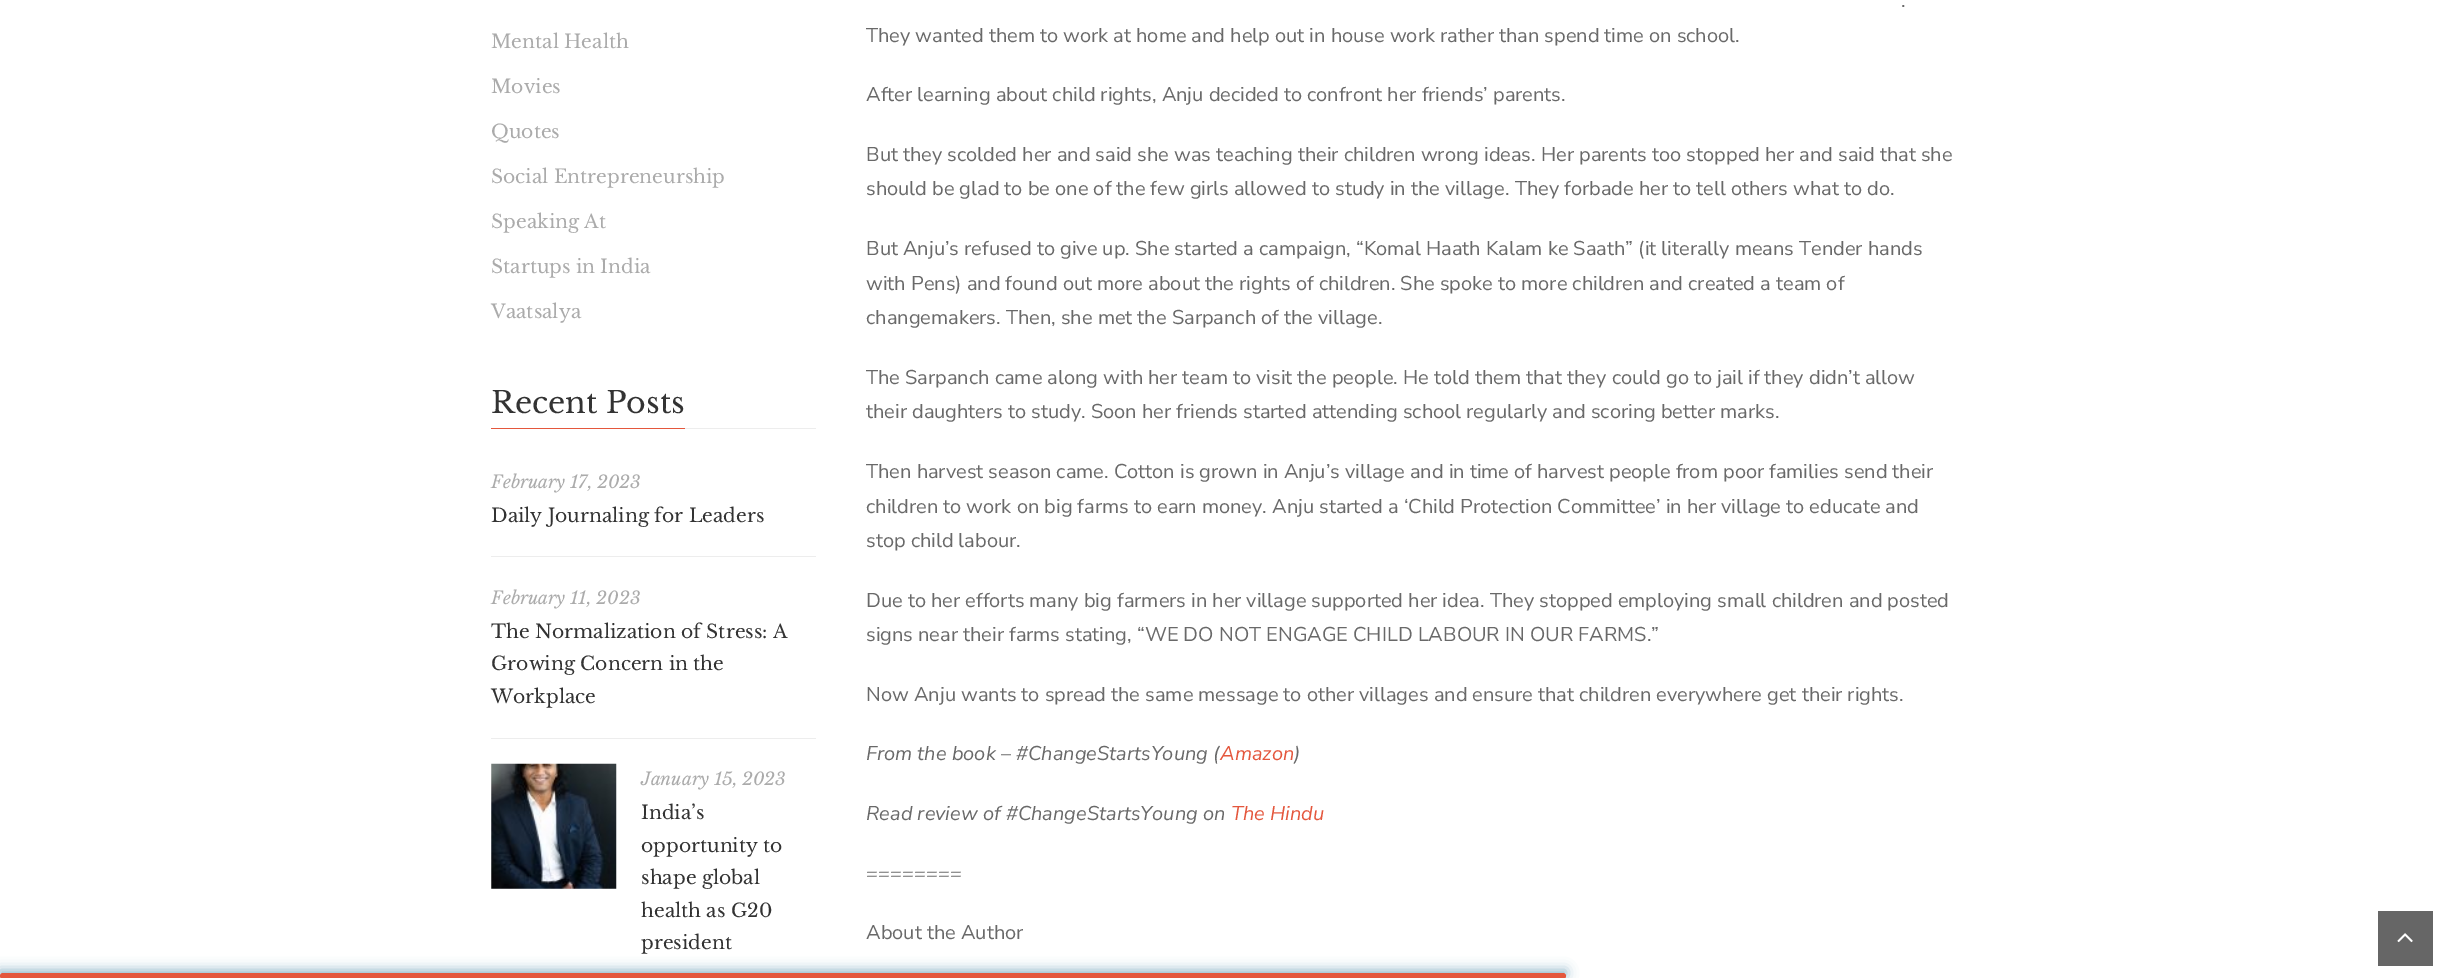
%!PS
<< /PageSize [2445 978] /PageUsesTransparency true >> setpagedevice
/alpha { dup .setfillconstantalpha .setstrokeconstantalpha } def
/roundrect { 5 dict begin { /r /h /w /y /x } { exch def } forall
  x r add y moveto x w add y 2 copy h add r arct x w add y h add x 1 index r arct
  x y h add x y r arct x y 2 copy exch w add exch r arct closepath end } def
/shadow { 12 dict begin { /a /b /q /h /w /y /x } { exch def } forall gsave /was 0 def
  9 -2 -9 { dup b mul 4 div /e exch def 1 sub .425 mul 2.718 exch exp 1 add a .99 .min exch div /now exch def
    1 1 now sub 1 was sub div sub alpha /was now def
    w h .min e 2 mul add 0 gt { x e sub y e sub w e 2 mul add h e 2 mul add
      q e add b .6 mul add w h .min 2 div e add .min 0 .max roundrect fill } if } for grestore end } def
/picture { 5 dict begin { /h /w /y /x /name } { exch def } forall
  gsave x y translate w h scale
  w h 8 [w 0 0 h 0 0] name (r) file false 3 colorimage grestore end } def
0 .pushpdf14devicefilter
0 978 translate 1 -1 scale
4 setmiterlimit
1 setgray
0 0 2445 978 rectfill
/LibreBaskerville-Regular [18.75 0 0 -18.75 0 0] selectfont
0.671 setgray
491 48 moveto (Mental Health) show
491 93 moveto (Movies) show
491 138 moveto (Quotes) show
491 183 moveto (Social Entrepreneurship) show
491 228 moveto (Speaking At) show
491 273 moveto (Startups in India) show
491 318 moveto (Vaatsalya) show
0.929 setgray
685 428 131 1 rectfill
/LibreBaskerville-Regular [30 0 0 -30 0 0] selectfont
0.2 setgray
491 413 moveto (Recent Posts) show
0.894 0.341 0.239 setrgbcolor
491 428 194 1 rectfill
0.929 setgray
491 556 325 1 rectfill
/LibreBaskerville-Italic [17.5 0 0 -17.5 0 0] selectfont
0.671 setgray
491 488 moveto (February 17, 2023) show
/LibreBaskerville-Regular [18.75 0 0 -18.75 0 0] selectfont
0.2 setgray
491 522 moveto (Daily Journaling for Leaders) show
0.929 setgray
491 738 325 1 rectfill
/LibreBaskerville-Italic [17.5 0 0 -17.5 0 0] selectfont
0.671 setgray
491 604 moveto (February 11, 2023) show
/LibreBaskerville-Regular [18.75 0 0 -18.75 0 0] selectfont
0.2 setgray
491 638 moveto (The Normalization of Stress: A) show
491 670 moveto (Growing Concern in the) show
491 703 moveto (Workplace) show
(img1.rgb) 491 763 126 126 picture
/LibreBaskerville-Italic [17.5 0 0 -17.5 0 0] selectfont
0.671 setgray
641 785 moveto (January 15, 2023) show
/LibreBaskerville-Regular [18.75 0 0 -18.75 0 0] selectfont
0.2 setgray
641 819 moveto (India’s) show
641 852 moveto (opportunity to) show
641 884 moveto (shape global) show
641 917 moveto (health as G20) show
641 949 moveto (president) show
/NunitoSans-Regular [20 0 0 -20 0 0] selectfont
0.412 setgray
1901 7 moveto (.) show
866 42 moveto (They wanted them to work at home and help out in house work rather than spend time on school.) show
866 101 moveto (After learning about child rights, Anju decided to confront her friends’ parents.) show
866 161 moveto (But they scolded her and said she was teaching their children wrong ideas. Her parents too stopped her and said that she) show
866 195 moveto (should be glad to be one of the few girls allowed to study in the village. They forbade her to tell others what to do.) show
866 255 moveto (But Anju’s refused to give up. She started a campaign, “Komal Haath Kalam ke Saath” \(it literally means Tender hands) show
866 290 moveto (with Pens\) and found out more about the rights of children. She spoke to more children and created a team of) show
866 324 moveto (changemakers. Then, she met the Sarpanch of the village.) show
866 384 moveto (The Sarpanch came along with her team to visit the people. He told them that they could go to jail if they didn’t allow) show
866 418 moveto (their daughters to study. Soon her friends started attending school regularly and scoring better marks.) show
866 478 moveto (Then harvest season came. Cotton is grown in Anju’s village and in time of harvest people from poor families send their) show
866 513 moveto (children to work on big farms to earn money. Anju started a ‘Child Protection Committee’ in her village to educate and) show
866 547 moveto (stop child labour.) show
866 607 moveto (Due to her efforts many big farmers in her village supported her idea. They stopped employing small children and posted) show
866 641 moveto (signs near their farms stating, “WE DO NOT ENGAGE CHILD LABOUR IN OUR FARMS.”) show
866 701 moveto (Now Anju wants to spread the same message to other villages and ensure that children everywhere get their rights.) show
/NunitoSans-Italic [20 0 0 -20 0 0] selectfont
866 760 moveto (From the book – #ChangeStartsYoung \() show
0.894 0.341 0.239 setrgbcolor
1220 760 moveto (Amazon) show
0.412 setgray
1294 760 moveto (\)) show
866 820 moveto (Read review of #ChangeStartsYoung on) show
0.894 0.341 0.239 setrgbcolor
1231 820 moveto (The Hindu) show
/NunitoSans-Regular [20 0 0 -20 0 0] selectfont
0.412 setgray
866 880 moveto (========) show
866 939 moveto (About the Author) show
0.4 setgray
2378 911 55 55 rectfill
(img2.rgb) 2397 933 16 10 picture
0.365 0.592 0.686 setrgbcolor
0 970 1566 6 3 6 0.7 shadow
0.894 0.341 0.239 setrgbcolor
0 973 1566 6 3 roundrect fill
.poppdf14devicefilter showpage
